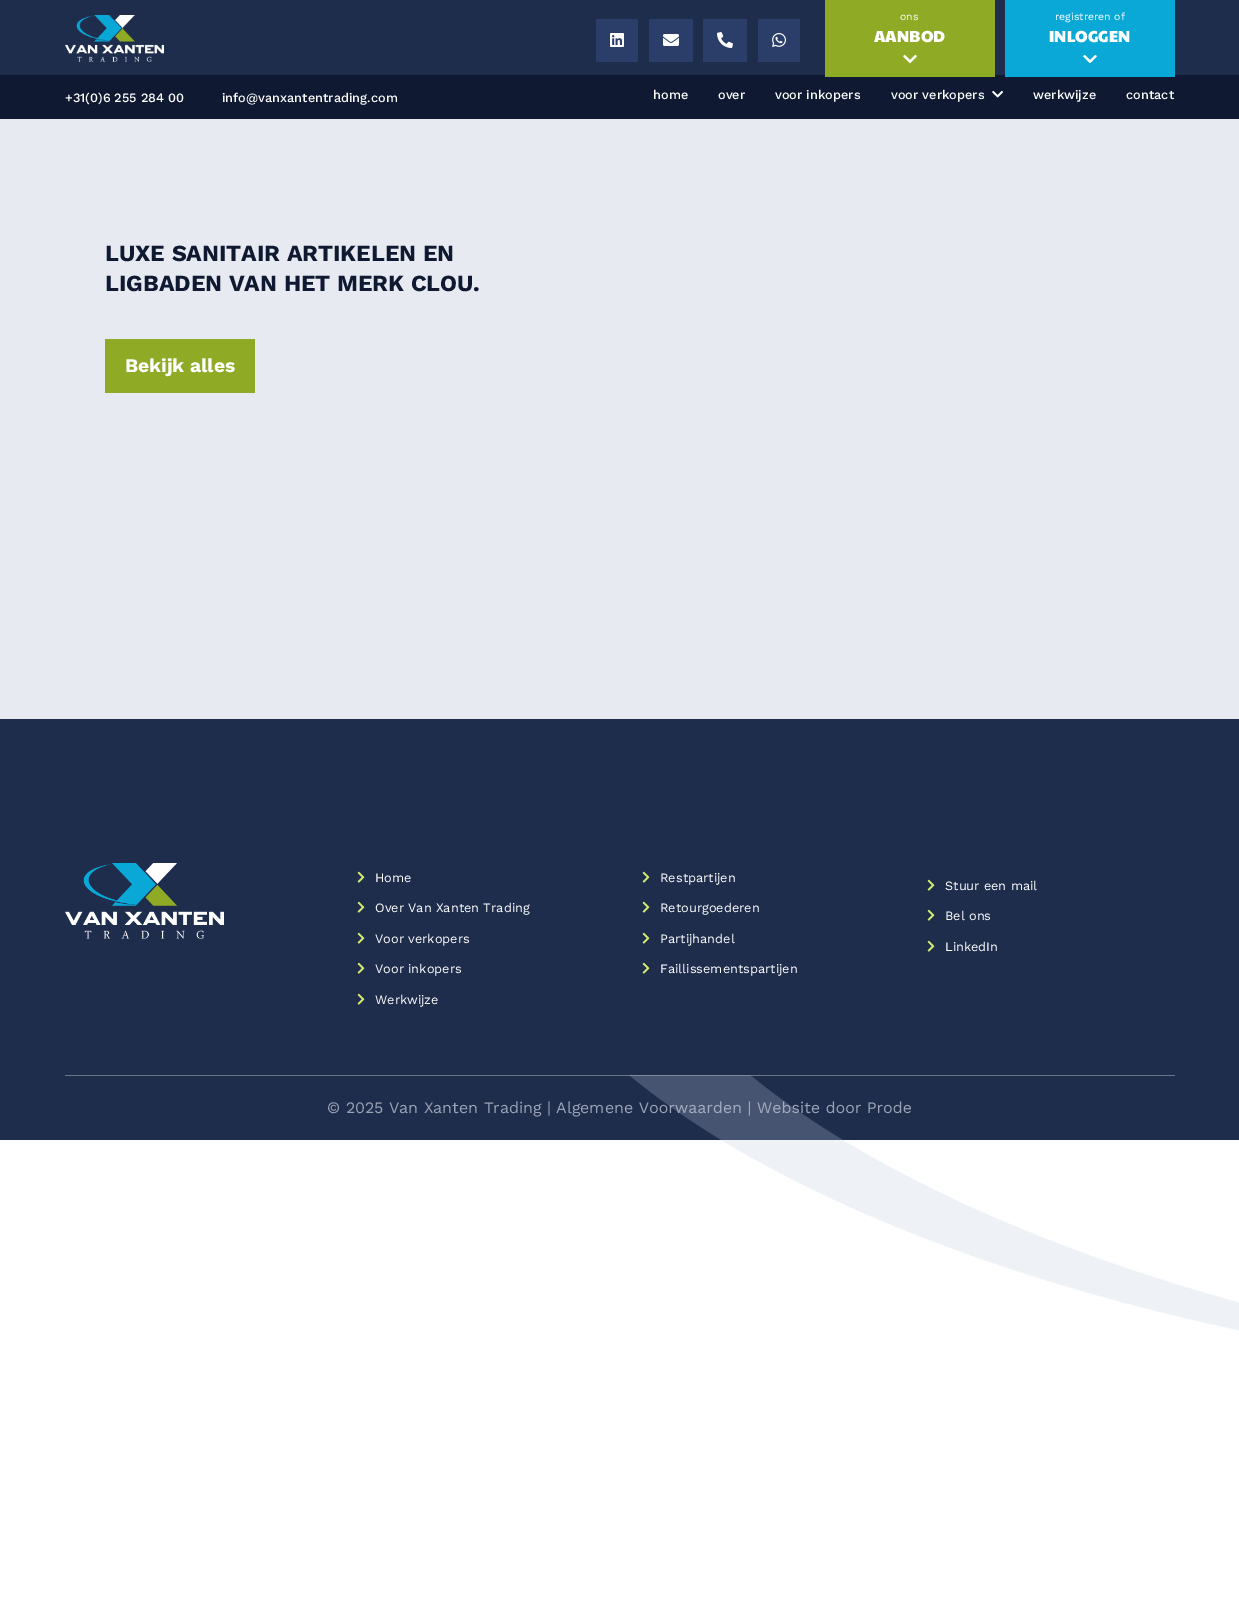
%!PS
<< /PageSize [1239 1616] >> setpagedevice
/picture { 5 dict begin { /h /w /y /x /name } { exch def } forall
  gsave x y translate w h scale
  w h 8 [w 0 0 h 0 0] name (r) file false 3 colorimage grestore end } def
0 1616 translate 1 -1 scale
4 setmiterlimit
1 setgray
0 0 1239 1616 rectfill
0.122 0.176 0.302 setrgbcolor
0 0 1239 75 rectfill
(img1.rgb) 65 15 99 47 picture
0.169 0.243 0.416 setrgbcolor
596 19 42 43 rectfill
(img2.rgb) 610 33 14 14 picture
649 19 44 43 rectfill
(img3.rgb) 663 34 16 12 picture
703 19 44 43 rectfill
(img4.rgb) 717 32 16 16 picture
758 19 42 43 rectfill
(img5.rgb) 772 33 14 14 picture
0.059 0.102 0.196 setrgbcolor
0 75 1239 44 rectfill
0.561 0.667 0.145 setrgbcolor
825 0 170 77 rectfill
/WorkSans-Regular [10.5 0 0 -10.5 0 0] selectfont
1 setgray
900 20 moveto (ons) show
/PaytoneOne-Regular [16 0 0 -16 0 0] selectfont
874 42 moveto (AANBOD) show
(img6.rgb) 903 54 14 10 picture
0.035 0.659 0.839 setrgbcolor
1005 0 170 77 rectfill
/WorkSans-Regular [10.5 0 0 -10.5 0 0] selectfont
1 setgray
1055 20 moveto (registreren of) show
/PaytoneOne-Regular [16 0 0 -16 0 0] selectfont
1049 42 moveto (INLOGGEN) show
(img7.rgb) 1083 54 14 10 picture
/WorkSans-Medium [12.75 0 0 -12.75 0 0] selectfont
65 102 moveto (+31\(0\)6 255 284 00) show
222 102 moveto (info@vanxantentrading.com) show
653 99 moveto (home) show
718 99 moveto (over) show
775 99 moveto (voor inkopers) show
891 99 moveto (voor verkopers) show
(img8.rgb) 992 90 11 8 picture
1033 99 moveto (werkwijze) show
1126 99 moveto (contact) show
0.91 0.918 0.945 setrgbcolor
0 119 1239 600 rectfill
/WorkSans-Bold [23 0 0 -23 0 0] selectfont
0.059 0.102 0.196 setrgbcolor
105 261 moveto (LUXE SANITAIR ARTIKELEN EN) show
105 291 moveto (LIGBADEN VAN HET MERK CLOU.) show
0.561 0.667 0.145 setrgbcolor
105 339 150 54 rectfill
/WorkSans-Bold [19.25 0 0 -19.25 0 0] selectfont
1 setgray
125 372 moveto (Bekijk alles) show
0.122 0.176 0.302 setrgbcolor
0 719 1239 421 rectfill
(img9.rgb) 65 863 159 76 picture
(img10.rgb) 357 871 8 12 picture
/WorkSans-Regular [12.75 0 0 -12.75 0 0] selectfont
1 setgray
375 882 moveto (Home) show
(img10.rgb) 357 901 8 12 picture
375 912 moveto (Over Van Xanten Trading) show
(img10.rgb) 357 932 8 12 picture
375 943 moveto (Voor verkopers) show
(img10.rgb) 357 962 8 12 picture
375 973 moveto (Voor inkopers) show
(img10.rgb) 357 993 8 12 picture
375 1004 moveto (Werkwijze) show
(img10.rgb) 642 871 8 12 picture
660 882 moveto (Restpartijen) show
(img10.rgb) 642 901 8 12 picture
660 912 moveto (Retourgoederen) show
(img10.rgb) 642 932 8 12 picture
660 943 moveto (Partijhandel) show
(img10.rgb) 642 962 8 12 picture
660 973 moveto (Faillissementspartijen) show
(img10.rgb) 927 879 8 12 picture
945 890 moveto (Stuur een mail) show
(img10.rgb) 927 909 8 12 picture
945 920 moveto (Bel ons) show
(img10.rgb) 927 940 8 12 picture
945 951 moveto (LinkedIn) show
0.42 0.455 0.533 setrgbcolor
65 1075 1110 1 rectfill
/WorkSans-Regular [16 0 0 -16 0 0] selectfont
0.608 0.639 0.714 setrgbcolor
327 1113 moveto (© 2025 Van Xanten Trading | Algemene Voorwaarden | Website door Prode) show
(img11.rgb) 629 1075 610 256 picture
showpage
